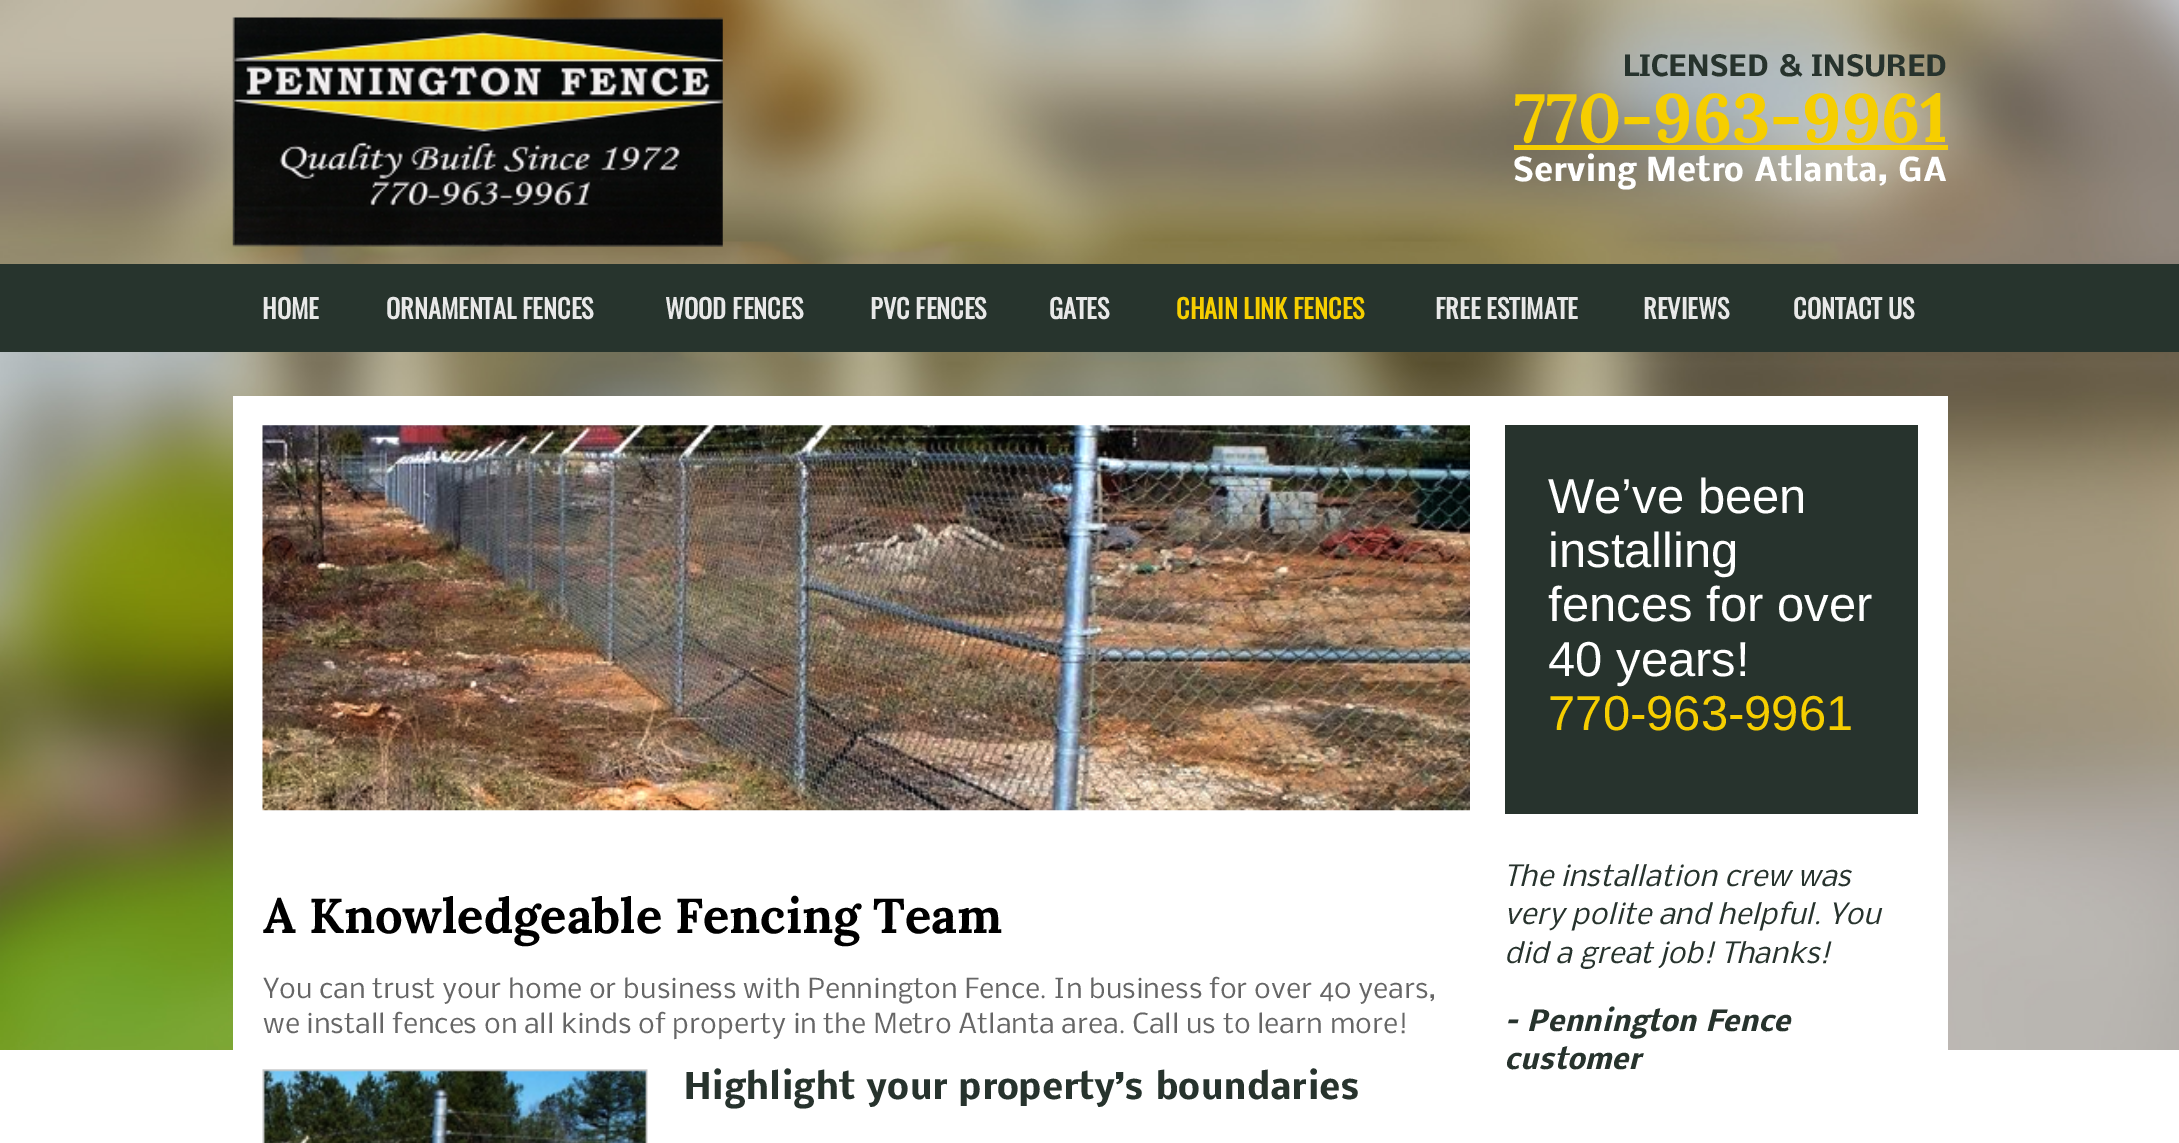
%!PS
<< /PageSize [2179 1143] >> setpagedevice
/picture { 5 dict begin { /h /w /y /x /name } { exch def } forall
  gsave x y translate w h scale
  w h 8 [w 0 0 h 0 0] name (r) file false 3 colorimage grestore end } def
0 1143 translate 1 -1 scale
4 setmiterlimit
1 setgray
0 0 2179 1143 rectfill
(img1.rgb) 0 0 2179 1050 picture
(img2.rgb) 232 17 491 230 picture
/Nobile-Bold [28 0 0 -28 0 0] selectfont
0.153 0.2 0.176 setrgbcolor
1623 76 moveto (LICENSED & INSURED) show
/Lora-Bold [68.25 0 0 -68.25 0 0] selectfont
0.965 0.808 0 setrgbcolor
1514 142 moveto (770-963-9961) show
1514 145 434 5 rectfill
/Nobile-Bold [31.5 0 0 -31.5 0 0] selectfont
1 setgray
1513 181 moveto (Serving Metro Atlanta, GA) show
0.153 0.204 0.176 setrgbcolor
0 264 2179 88 rectfill
/Oswald-Bold [26.25 0 0 -26.25 0 0] selectfont
0.91 setgray
262 319 moveto (HOME) show
386 319 moveto (ORNAMENTAL FENCES) show
665 319 moveto (WOOD FENCES) show
870 319 moveto (PVC FENCES) show
1049 319 moveto (GATES) show
0.965 0.808 0 setrgbcolor
1176 319 moveto (CHAIN LINK FENCES) show
0.91 setgray
1435 319 moveto (FREE ESTIMATE) show
1643 319 moveto (REVIEWS) show
1793 319 moveto (CONTACT US) show
1 setgray
233 396 1715 654 rectfill
(img3.rgb) 262 425 1208 386 picture
/Lora-Bold [49 0 0 -49 0 0] selectfont
0 setgray
263 933 moveto (A Knowledgeable Fencing Team) show
/Nobile-ExtraLight [26.25 0 0 -26.25 0 0] selectfont
0.4 setgray
263 998 moveto (You can trust your home or business with Pennington Fence. In business for over 40 years,) show
263 1033 moveto (we install fences on all kinds of property in the Metro Atlanta area. Call us to learn more!) show
(img4.rgb) 262 1069 386 74 picture
/Nobile-Bold [35 0 0 -35 0 0] selectfont
0.153 0.2 0.176 setrgbcolor
684 1099 moveto (Highlight your property’s boundaries) show
1505 425 413 389 rectfill
/LiberationSans-Regular [49 0 0 -49 0 0] selectfont
1 setgray
1548 513 moveto (We’ve been) show
1548 567 moveto (installing) show
1548 621 moveto (fences for over) show
1548 676 moveto (40 years!) show
0.965 0.808 0 setrgbcolor
1548 730 moveto (770-963-9961) show
/Nobile-ExtraLightItalic [28 0 0 -28 0 0] selectfont
0.153 0.2 0.176 setrgbcolor
1504 886 moveto (The installation crew was) show
1504 924 moveto (very polite and helpful. You) show
1504 963 moveto (did a great job! Thanks!) show
/Nobile-BoldItalic [28 0 0 -28 0 0] selectfont
1504 1031 moveto (– Pennington Fence) show
1504 1069 moveto (customer) show
showpage
